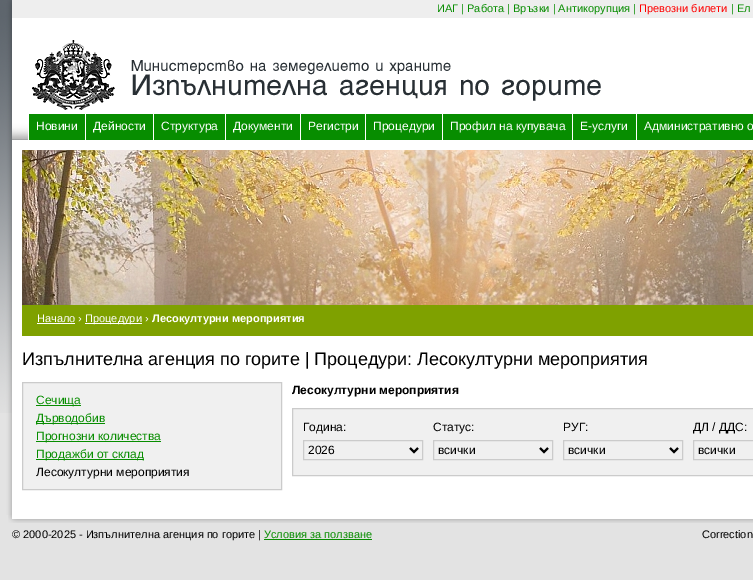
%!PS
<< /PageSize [753 580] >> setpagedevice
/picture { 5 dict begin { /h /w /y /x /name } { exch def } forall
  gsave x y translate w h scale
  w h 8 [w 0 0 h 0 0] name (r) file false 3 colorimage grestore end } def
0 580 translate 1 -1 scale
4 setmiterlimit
0.89 setgray
0 0 753 580 rectfill
(img1.rgb) 0 413 753 102 picture
(img2.rgb) 0 0 753 413 picture
/LiberationSans-Regular [11 0 0 -11 0 0] selectfont
0.027 0.553 0 setrgbcolor
437 12 moveto (ИАГ | Работа | Връзки | Антикорупция |) show
1 0 0 setrgbcolor
639 12 moveto (Превозни билети) show
0.027 0.553 0 setrgbcolor
731 12 moveto (| Ел) show
(img3.rgb) 32 40 569 70 picture
29 114 56 26 rectfill
1 setgray
28 125 1 15 rectfill
/LiberationSans-Regular [12 0 0 -12 0 0] selectfont
36 130 moveto (Новини) show
0.027 0.553 0 setrgbcolor
86 114 67 26 rectfill
1 setgray
85 125 1 15 rectfill
93 130 moveto (Дейности) show
0.027 0.553 0 setrgbcolor
154 114 71 26 rectfill
1 setgray
153 125 1 15 rectfill
161 130 moveto (Структура) show
0.027 0.553 0 setrgbcolor
226 114 74 26 rectfill
1 setgray
225 125 1 15 rectfill
233 130 moveto (Документи) show
0.027 0.553 0 setrgbcolor
301 114 64 26 rectfill
1 setgray
300 126 1 14 rectfill
308 130 moveto (Регистри) show
0.027 0.553 0 setrgbcolor
366 114 76 26 rectfill
1 setgray
365 126 1 14 rectfill
373 130 moveto (Процедури) show
0.027 0.553 0 setrgbcolor
443 114 129 26 rectfill
1 setgray
442 125 1 15 rectfill
450 130 moveto (Профил на купувача) show
0.027 0.553 0 setrgbcolor
573 114 63 26 rectfill
1 setgray
572 125 1 15 rectfill
580 130 moveto (Е-услуги) show
0.027 0.553 0 setrgbcolor
637 114 116 26 rectfill
1 setgray
636 125 1 15 rectfill
644 130 moveto (Административно о) show
(img4.rgb) 22 150 731 155 picture
0.498 0.631 0 setrgbcolor
22 305 731 31 rectfill
/LiberationSans-Regular [11 0 0 -11 0 0] selectfont
1 setgray
37 322 moveto (Начало ›) show
37 323 38 1 rectfill
85 323 57 1 rectfill
85 322 moveto (Процедури ›) show
/LiberationSans-Bold [11 0 0 -11 0 0] selectfont
152 322 moveto (Лесокултурни мероприятия) show
/LiberationSans-Regular [18 0 0 -18 0 0] selectfont
0 setgray
22 365 moveto (Изпълнителна агенция по горите | Процедури: Лесокултурни мероприятия) show
0.941 setgray
newpath 22.5 382.5 moveto 281.5 382.5 lineto 281.5 489.5 lineto 22.5 489.5 lineto closepath gsave fill grestore
0.796 setgray
stroke
0.027 0.553 0 setrgbcolor
36 405 45 1 rectfill
/LiberationSans-Regular [12 0 0 -12 0 0] selectfont
36 404 moveto (Сечища) show
36 423 69 1 rectfill
36 422 moveto (Дърводобив) show
36 441 125 1 rectfill
36 440 moveto (Прогнозни количества) show
36 459 108 1 rectfill
36 458 moveto (Продажби от склад) show
0 setgray
36 476 moveto (Лесокултурни мероприятия) show
/LiberationSans-Bold [12 0 0 -12 0 0] selectfont
292 394 moveto (Лесокултурни мероприятия) show
0.941 setgray
newpath 292.5 408.5 moveto 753.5 408.5 lineto 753.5 475.5 lineto 292.5 475.5 lineto closepath gsave fill grestore
0.796 setgray
stroke
/LiberationSans-Regular [12 0 0 -12 0 0] selectfont
0 setgray
303 431 moveto (Година:) show
433 431 moveto (Статус:) show
563 431 moveto (РУГ:) show
693 431 moveto (ДЛ / ДДС:) show
0.796 setgray
303.5 440.5 119 19 rectstroke
0 setgray
2 setlinewidth
newpath 410 448 moveto 414 452 lineto 418 448 lineto stroke
308 454 moveto (2026) show
0.796 setgray
1 setlinewidth
433.5 440.5 119 19 rectstroke
0 setgray
2 setlinewidth
newpath 540 448 moveto 544 452 lineto 548 448 lineto stroke
438 454 moveto (всички) show
0.796 setgray
1 setlinewidth
563.5 440.5 119 19 rectstroke
0 setgray
2 setlinewidth
newpath 670 448 moveto 674 452 lineto 678 448 lineto stroke
568 454 moveto (всички) show
0.796 setgray
1 setlinewidth
693.5 440.5 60 19 rectstroke
0 setgray
698 454 moveto (всички) show
(img5.rgb) 8 515 745 8 picture
/LiberationSans-Regular [11 0 0 -11 0 0] selectfont
12 538 moveto (© 2000-2025 - Изпълнителна агенция по горите |) show
0.027 0.553 0 setrgbcolor
264 538 moveto (Условия за ползване) show
264 539 108 1 rectfill
0 setgray
702 538 moveto (Correction) show
showpage
